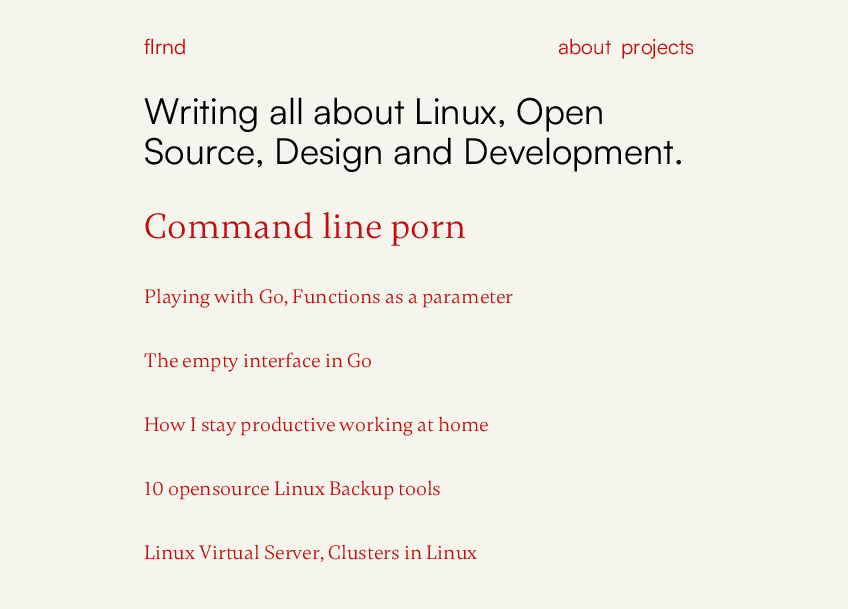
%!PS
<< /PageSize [848 609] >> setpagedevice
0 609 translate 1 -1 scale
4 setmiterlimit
0.965 0.961 0.929 setrgbcolor
0 0 848 609 rectfill
/Satoshi-Regular [21 0 0 -21 0 0] selectfont
0.765 0.047 0.047 setrgbcolor
144 54 moveto (flrnd) show
558 54 moveto (about) show
621 54 moveto (projects) show
/Satoshi-Regular [36 0 0 -36 0 0] selectfont
0.008 setgray
144 124 moveto (Writing all about Linux, Open) show
144 164 moveto (Source, Design and Development.) show
/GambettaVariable-Regular [36 0 0 -36 0 0] selectfont
0.765 0.047 0.047 setrgbcolor
144 238 moveto (Command line porn) show
/GambettaVariable-Regular [20 0 0 -20 0 0] selectfont
144 303 moveto (Playing with Go, Functions as a parameter) show
144 367 moveto (The empty interface in Go) show
144 431 moveto (How I stay productive working at home) show
144 495 moveto (10 opensource Linux Backup tools) show
144 559 moveto (Linux Virtual Server, Clusters in Linux) show
showpage
